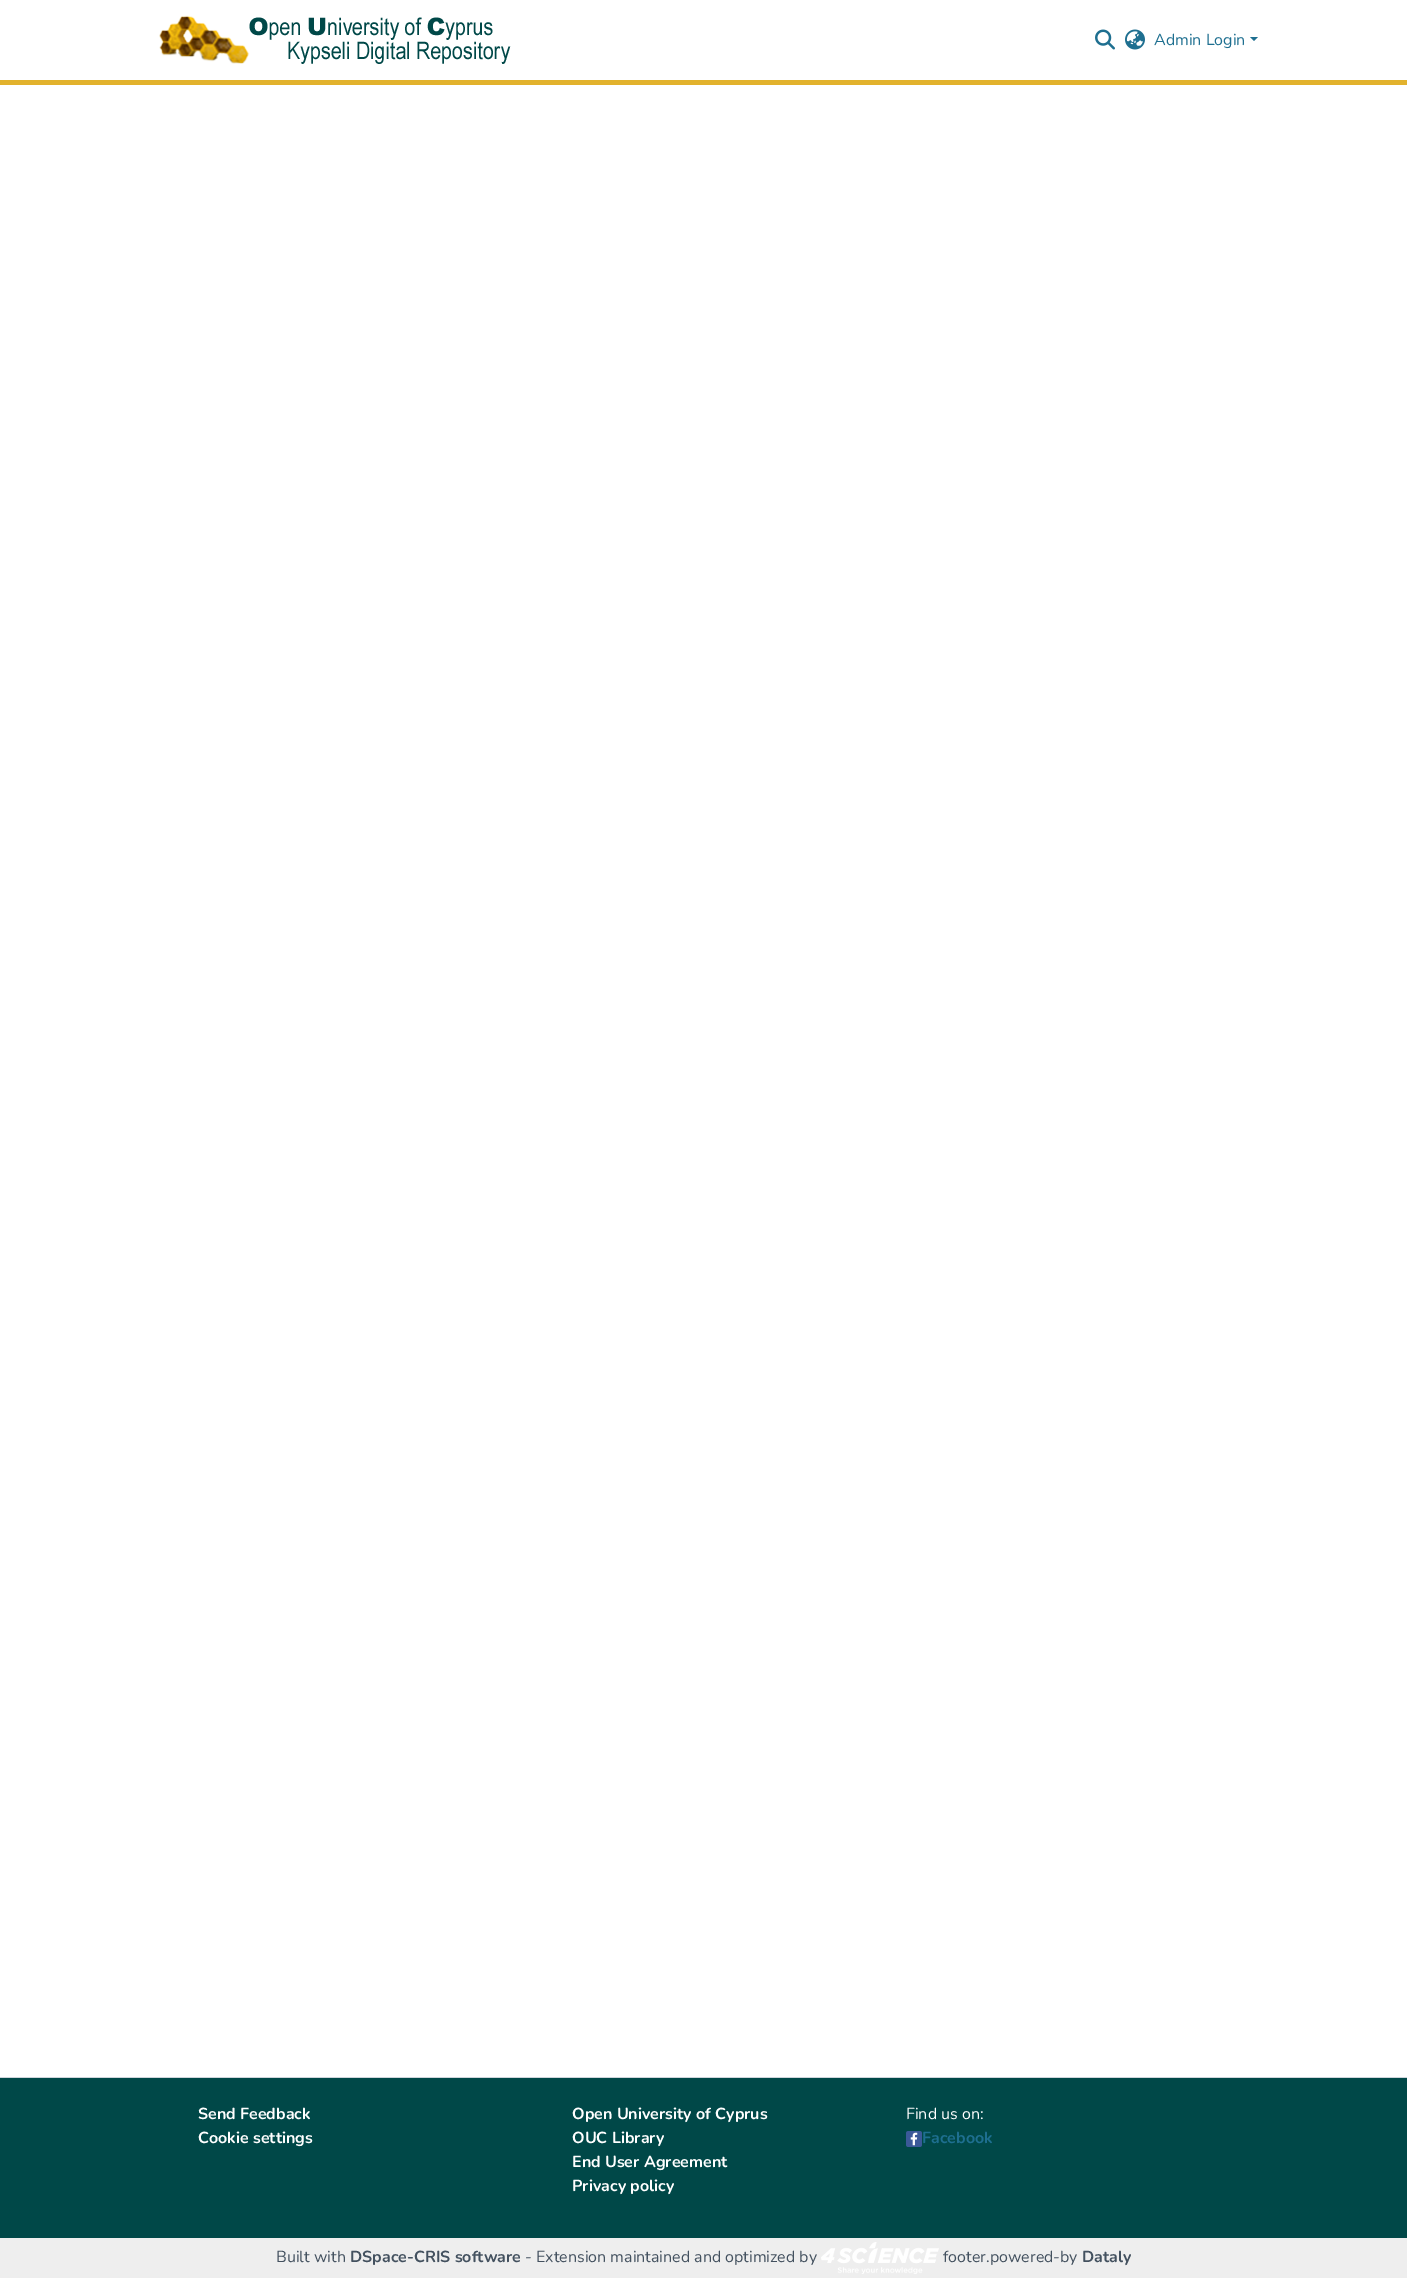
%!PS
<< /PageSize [1407 2278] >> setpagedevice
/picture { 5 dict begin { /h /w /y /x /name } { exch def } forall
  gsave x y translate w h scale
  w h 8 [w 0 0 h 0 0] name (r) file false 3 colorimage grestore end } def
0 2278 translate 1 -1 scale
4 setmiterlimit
1 setgray
0 0 1407 2278 rectfill
0.886 0.698 0.176 setrgbcolor
0 80 1407 5 rectfill
(img1.rgb) 159 15 352 49 picture
(img2.rgb) 1095 29 20 21 picture
(img3.rgb) 1125 29 20 21 picture
/Nunito-Regular [16 0 0 -16 0 0] selectfont
0.118 0.435 0.565 setrgbcolor
1154 45 moveto (Admin Login) show
newpath 1250 37 moveto 1258 37 lineto 1254 41 lineto closepath fill
0.933 setgray
0 2238 1407 40 rectfill
0.808 0.831 0.855 setrgbcolor
0 2077 1407 1 rectfill
0 0.282 0.282 setrgbcolor
0 2078 1407 160 rectfill
/Nunito-Bold [16 0 0 -16 0 0] selectfont
1 setgray
198 2119 moveto (Send Feedback) show
198 2143 moveto (Cookie settings) show
572 2119 moveto (Open University of Cyprus) show
572 2143 moveto (OUC Library) show
572 2167 moveto (End User Agreement) show
572 2191 moveto (Privacy policy) show
/Nunito-Regular [16 0 0 -16 0 0] selectfont
906 2119 moveto (Find us on:) show
(img4.rgb) 906 2131 16 16 picture
/Nunito-Bold [16 0 0 -16 0 0] selectfont
0.118 0.435 0.565 setrgbcolor
922 2143 moveto (Facebook) show
/Nunito-Regular [16 0 0 -16 0 0] selectfont
0.263 0.318 0.373 setrgbcolor
276 2262 moveto (Built with) show
/Nunito-Bold [16 0 0 -16 0 0] selectfont
350 2262 moveto (DSpace-CRIS software) show
/Nunito-Regular [16 0 0 -16 0 0] selectfont
525 2262 moveto (- Extension maintained and optimized by) show
(img5.rgb) 821 2242 118 32 picture
943 2262 moveto (footer.powered-by) show
/Nunito-Bold [16 0 0 -16 0 0] selectfont
1082 2262 moveto (Dataly) show
showpage
